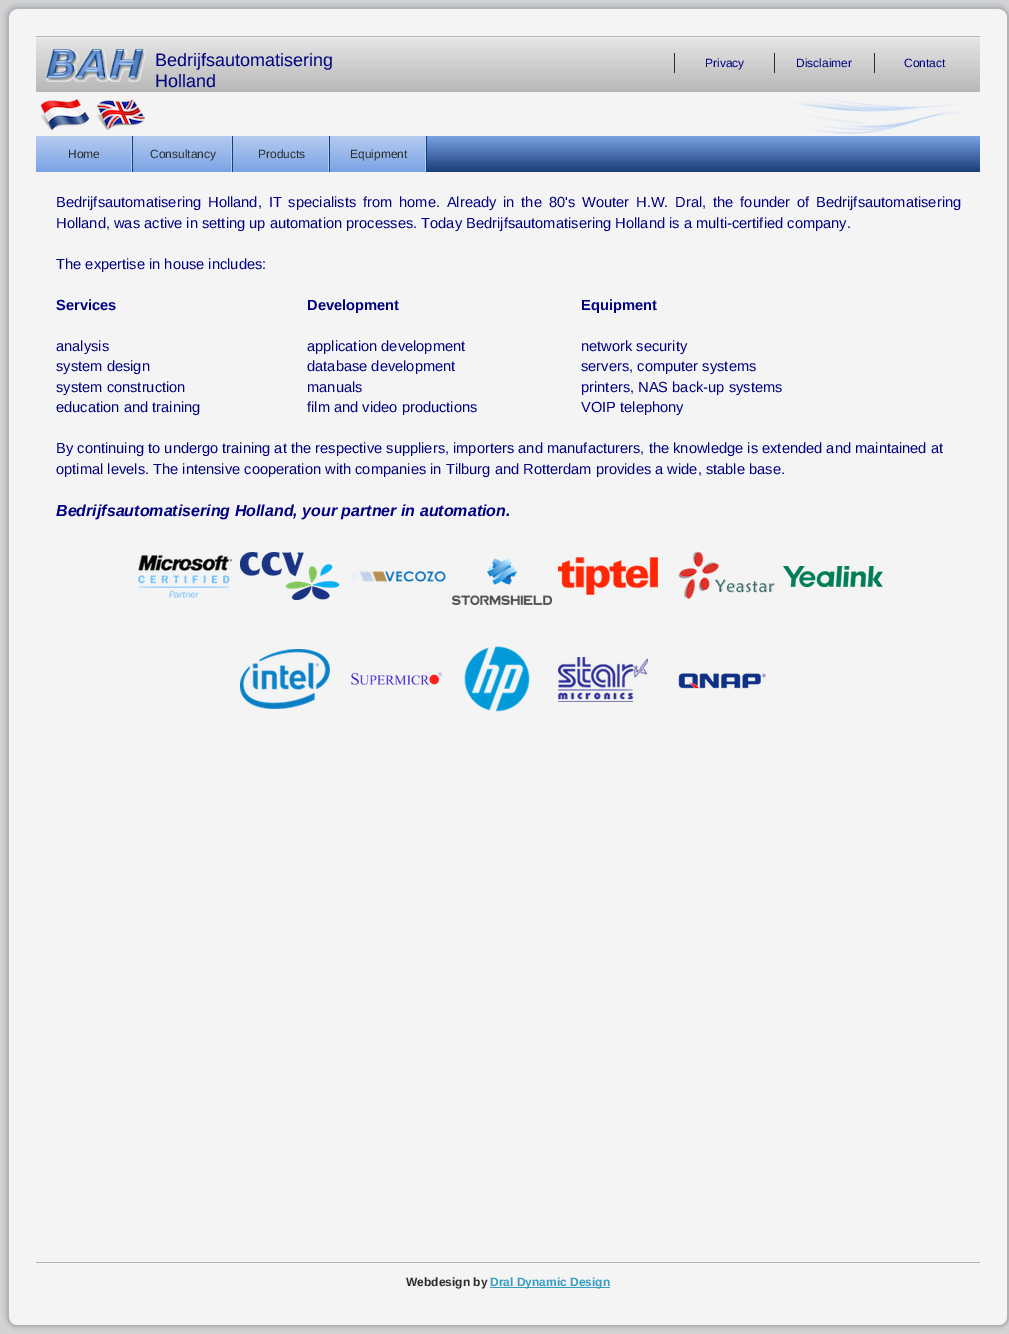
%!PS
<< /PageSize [1009 1334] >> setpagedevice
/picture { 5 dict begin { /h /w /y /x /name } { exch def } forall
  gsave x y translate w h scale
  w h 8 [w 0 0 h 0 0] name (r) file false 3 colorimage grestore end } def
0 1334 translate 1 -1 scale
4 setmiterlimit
0.827 setgray
0 0 1009 1334 rectfill
(img1.rgb) 2 2 16 16 picture
(img2.rgb) 18 2 980 16 picture
(img3.rgb) 998 2 11 16 picture
(img4.rgb) 2 18 16 1298 picture
0.957 setgray
18 18 980 1298 rectfill
(img5.rgb) 36 36 944 56 picture
(img6.rgb) 794 98 171 36 picture
(img7.rgb) 46 48 100 34 picture
/LiberationSans-Regular [18 0 0 -18 0 0] selectfont
0 0 0.502 setrgbcolor
155 66 moveto (Bedrijfsautomatisering) show
155 87 moveto (Holland) show
0.176 setgray
674 53 1 20 rectfill
/LiberationSans-Regular [12 0 0 -12 0 0] selectfont
0 0 0.502 setrgbcolor
705 67 moveto (Privacy) show
0.176 setgray
774 53 1 20 rectfill
0 0 0.502 setrgbcolor
796 67 moveto (Disclaimer) show
0.176 setgray
874 53 1 20 rectfill
0 0 0.502 setrgbcolor
904 67 moveto (Contact) show
(img8.rgb) 40 99 50 32 picture
(img9.rgb) 97 99 48 32 picture
0.475 0.635 0.894 setrgbcolor
427 136 553 1 rectfill
(img10.rgb) 427 137 553 35 picture
(img11.rgb) 36 136 16 36 picture
(img12.rgb) 52 136 65 36 picture
0.176 setgray
68 158 moveto (Home) show
(img13.rgb) 117 136 16 36 picture
(img11.rgb) 133 136 16 36 picture
(img14.rgb) 149 136 68 36 picture
150 158 moveto (Consultancy) show
(img13.rgb) 217 136 16 36 picture
(img11.rgb) 233 136 16 36 picture
(img12.rgb) 249 136 65 36 picture
258 158 moveto (Products) show
(img13.rgb) 314 136 16 36 picture
(img11.rgb) 330 136 16 36 picture
(img12.rgb) 346 136 65 36 picture
350 158 moveto (Equipment) show
(img13.rgb) 411 136 16 36 picture
/LiberationSans-Regular [14.67 0 0 -14.67 0 0] selectfont
0 0 0.502 setrgbcolor
56 207 moveto 2.75 0 32 (Bedrijfsautomatisering Holland, IT specialists from home. Already in the 80's Wouter H.W. Dral, the founder of Bedrijfsautomatisering) widthshow
56 228 moveto (Holland, was active in setting up automation processes. Today Bedrijfsautomatisering Holland is a multi-certified company.) show
56 269 moveto (The expertise in house includes:) show
/LiberationSans-Bold [14.67 0 0 -14.67 0 0] selectfont
56 310 moveto (Services) show
307 310 moveto (Development) show
581 310 moveto (Equipment) show
/LiberationSans-Regular [14.67 0 0 -14.67 0 0] selectfont
56 351 moveto (analysis) show
307 351 moveto (application development) show
581 351 moveto (network security) show
56 371 moveto (system design) show
307 371 moveto (database development) show
581 371 moveto (servers, computer systems) show
56 392 moveto (system construction) show
307 392 moveto (manuals) show
581 392 moveto (printers, NAS back-up systems) show
56 412 moveto (education and training) show
307 412 moveto (film and video productions) show
581 412 moveto (VOIP telephony) show
56 453 moveto (By continuing to undergo training at the respective suppliers, importers and manufacturers, the knowledge is extended and maintained at) show
56 474 moveto (optimal levels. The intensive cooperation with companies in Tilburg and Rotterdam provides a wide, stable base.) show
/LiberationSans-BoldItalic [16 0 0 -16 0 0] selectfont
56 516 moveto (Bedrijfsautomatisering Holland, your partner in automation.) show
(img15.rgb) 138 555 95 43 picture
(img16.rgb) 240 552 100 48 picture
(img17.rgb) 347 571 99 11 picture
(img18.rgb) 452 558 100 47 picture
(img19.rgb) 558 557 100 38 picture
(img20.rgb) 678 551 98 48 picture
(img21.rgb) 783 566 100 21 picture
(img22.rgb) 240 649 90 60 picture
(img23.rgb) 351 672 92 13 picture
(img24.rgb) 464 646 66 66 picture
(img25.rgb) 558 657 90 45 picture
(img26.rgb) 678 671 88 18 picture
0.706 setgray
36 1262 944 1 rectfill
/LiberationSans-Bold [12 0 0 -12 0 0] selectfont
0.176 setgray
406 1286 moveto (Webdesign by) show
0.216 0.616 0.765 setrgbcolor
490 1287 120 1 rectfill
490 1286 moveto (Dral Dynamic Design) show
(img27.rgb) 998 18 11 1298 picture
(img28.rgb) 3 1316 15 15 picture
(img29.rgb) 18 1316 980 15 picture
(img30.rgb) 998 1316 11 14 picture
showpage
